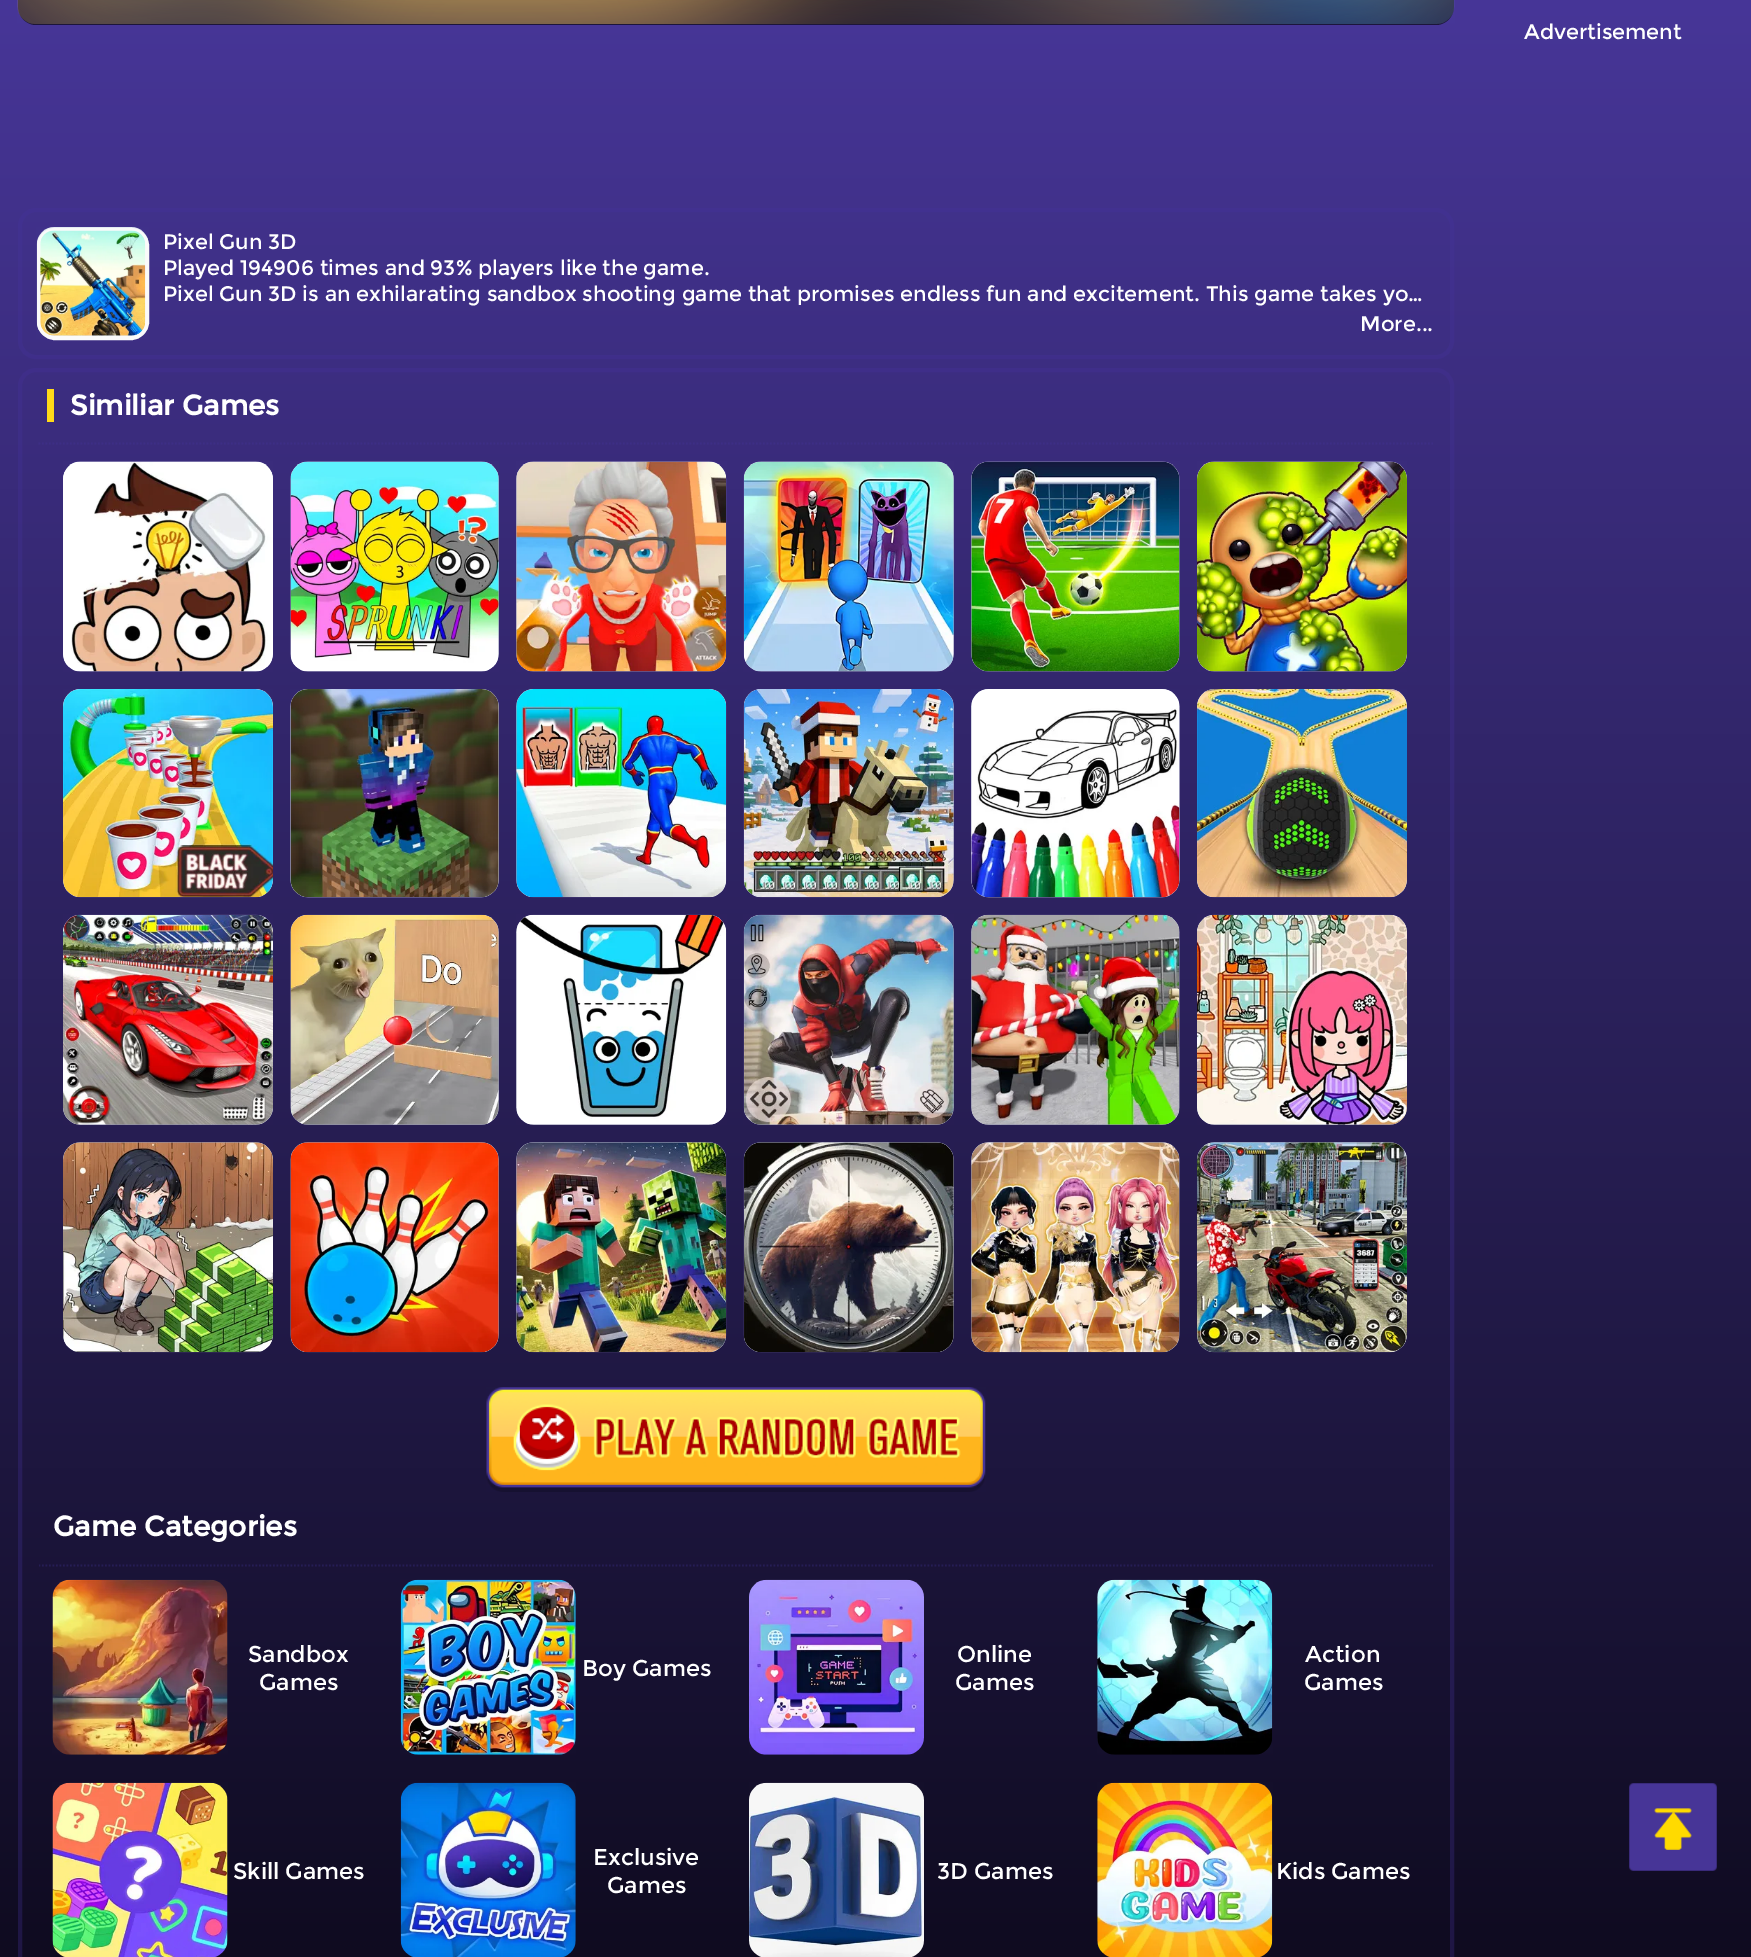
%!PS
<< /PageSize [1751 1957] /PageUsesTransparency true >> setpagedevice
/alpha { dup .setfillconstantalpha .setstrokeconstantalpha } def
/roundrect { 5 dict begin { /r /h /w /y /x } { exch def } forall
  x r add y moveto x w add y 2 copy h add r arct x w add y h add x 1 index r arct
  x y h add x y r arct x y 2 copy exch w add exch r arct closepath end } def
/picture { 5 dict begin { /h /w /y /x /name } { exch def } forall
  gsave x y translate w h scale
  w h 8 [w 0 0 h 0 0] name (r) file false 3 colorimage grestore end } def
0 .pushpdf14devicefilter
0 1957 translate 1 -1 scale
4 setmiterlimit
1 setgray
0 0 1751 1957 rectfill
gsave newpath 0 0 moveto 1751 0 lineto 1751 1957 lineto 0 1957 lineto closepath clip newpath
<< /ShadingType 2 /ColorSpace /DeviceRGB /Coords [876 0 876 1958] /Extend [true true] /Function << /FunctionType 2 /Domain [0 1] /C0 [0.278 0.212 0.596] /C1 [0.059 0.043 0.125] /N 1 >> >> shfill grestore
0.11 0.082 0.231 setrgbcolor
18 -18 1436 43 18 roundrect fill
(img1.rgb) 17 0 1438 24 picture
/Montserrat-Regular [21 0 0 -21 0 0] selectfont
1 setgray
1524 39 moveto (Advertisement) show
0.29 alpha
0.271 0.196 0.616 setrgbcolor
4 setlinewidth
20 210 1432 147 16 roundrect stroke
1 alpha
(img2.rgb) 36 227 113 112 picture
0.98 setgray
39 230 108 108 16 roundrect stroke
(img3.rgb) 40 230 106 106 picture
1 setgray
163 249 moveto (Pixel Gun 3D) show
163 275 moveto (Played 194906 times and 93% players like the game.) show
163 301 moveto (Pixel Gun 3D is an exhilarating sandbox shooting game that promises endless fun and excitement. This game takes yo…) show
1360 331 moveto (More...) show
0.29 alpha
0.271 0.196 0.616 setrgbcolor
20 370 1432 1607 16 roundrect stroke
1 alpha
0.239 0.18 0.525 setrgbcolor
1.8 setlinewidth
[1.75 1.75] 0 setdash
newpath 38.5 443.5 moveto 1433 443.5 lineto stroke
1 0.855 0.098 setrgbcolor
47 389 7 33 rectfill
/Montserrat-Bold [28 0 0 -28 0 0] selectfont
1 setgray
70 415 moveto (Similiar Games) show
(img4.rgb) 63 461 210 211 picture
(img5.rgb) 63 461 210 211 picture
(img6.rgb) 290 461 209 211 picture
(img7.rgb) 290 461 209 211 picture
(img8.rgb) 516 461 211 211 picture
(img9.rgb) 516 461 210 211 picture
(img10.rgb) 743 461 211 211 picture
(img11.rgb) 744 461 210 211 picture
(img12.rgb) 971 461 209 211 picture
(img13.rgb) 971 461 209 211 picture
(img14.rgb) 1197 461 210 211 picture
(img15.rgb) 1197 461 210 211 picture
(img16.rgb) 63 689 210 209 picture
(img17.rgb) 63 689 210 208 picture
(img18.rgb) 290 689 209 209 picture
(img19.rgb) 290 689 209 208 picture
(img20.rgb) 516 689 211 209 picture
(img21.rgb) 516 689 210 208 picture
(img22.rgb) 743 689 211 209 picture
(img23.rgb) 744 689 210 208 picture
(img24.rgb) 971 689 209 209 picture
(img25.rgb) 971 689 209 208 picture
(img26.rgb) 1197 689 210 209 picture
(img27.rgb) 1197 689 210 208 picture
(img28.rgb) 63 914 210 211 picture
(img29.rgb) 63 915 210 210 picture
(img30.rgb) 290 914 209 211 picture
(img31.rgb) 290 915 209 210 picture
(img32.rgb) 516 914 211 211 picture
(img33.rgb) 516 915 210 210 picture
(img34.rgb) 743 914 211 211 picture
(img35.rgb) 744 915 210 210 picture
(img36.rgb) 971 914 209 211 picture
(img37.rgb) 971 915 209 210 picture
(img38.rgb) 1197 914 210 211 picture
(img39.rgb) 1197 915 210 210 picture
(img40.rgb) 63 1142 210 211 picture
(img41.rgb) 63 1142 210 210 picture
(img42.rgb) 290 1142 209 211 picture
(img43.rgb) 290 1142 209 210 picture
(img44.rgb) 516 1142 211 211 picture
(img45.rgb) 516 1142 210 210 picture
(img46.rgb) 743 1142 211 211 picture
(img47.rgb) 744 1142 210 210 picture
(img48.rgb) 971 1142 209 211 picture
(img49.rgb) 971 1142 209 210 picture
(img50.rgb) 1197 1142 210 211 picture
(img51.rgb) 1197 1142 210 210 picture
(img52.rgb) 486 1387 500 105 picture
gsave
39 1502 1394 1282 rectclip
0.149 0.114 0.333 setrgbcolor
newpath 21 1565.5 moveto 1433 1565.5 lineto stroke
grestore
53 1536 moveto (Game Categories) show
(img53.rgb) 52 1579 176 176 picture
/Montserrat-Regular [22.75 0 0 -22.75 0 0] selectfont
248 1662 moveto (Sandbox) show
259 1690 moveto (Games) show
(img54.rgb) 400 1579 176 176 picture
582 1676 moveto (Boy Games) show
(img55.rgb) 749 1579 175 176 picture
957 1662 moveto (Online) show
955 1690 moveto (Games) show
(img56.rgb) 1097 1579 176 176 picture
1305 1662 moveto (Action) show
1304 1690 moveto (Games) show
(img57.rgb) 52 1782 176 175 picture
233 1879 moveto (Skill Games) show
(img58.rgb) 400 1782 176 175 picture
593 1865 moveto (Exclusive) show
607 1893 moveto (Games) show
(img59.rgb) 749 1782 175 175 picture
937 1879 moveto (3D Games) show
(img60.rgb) 1097 1782 176 175 picture
1276 1879 moveto (Kids Games) show
(img61.rgb) 1629 1783 88 88 picture
.poppdf14devicefilter showpage
